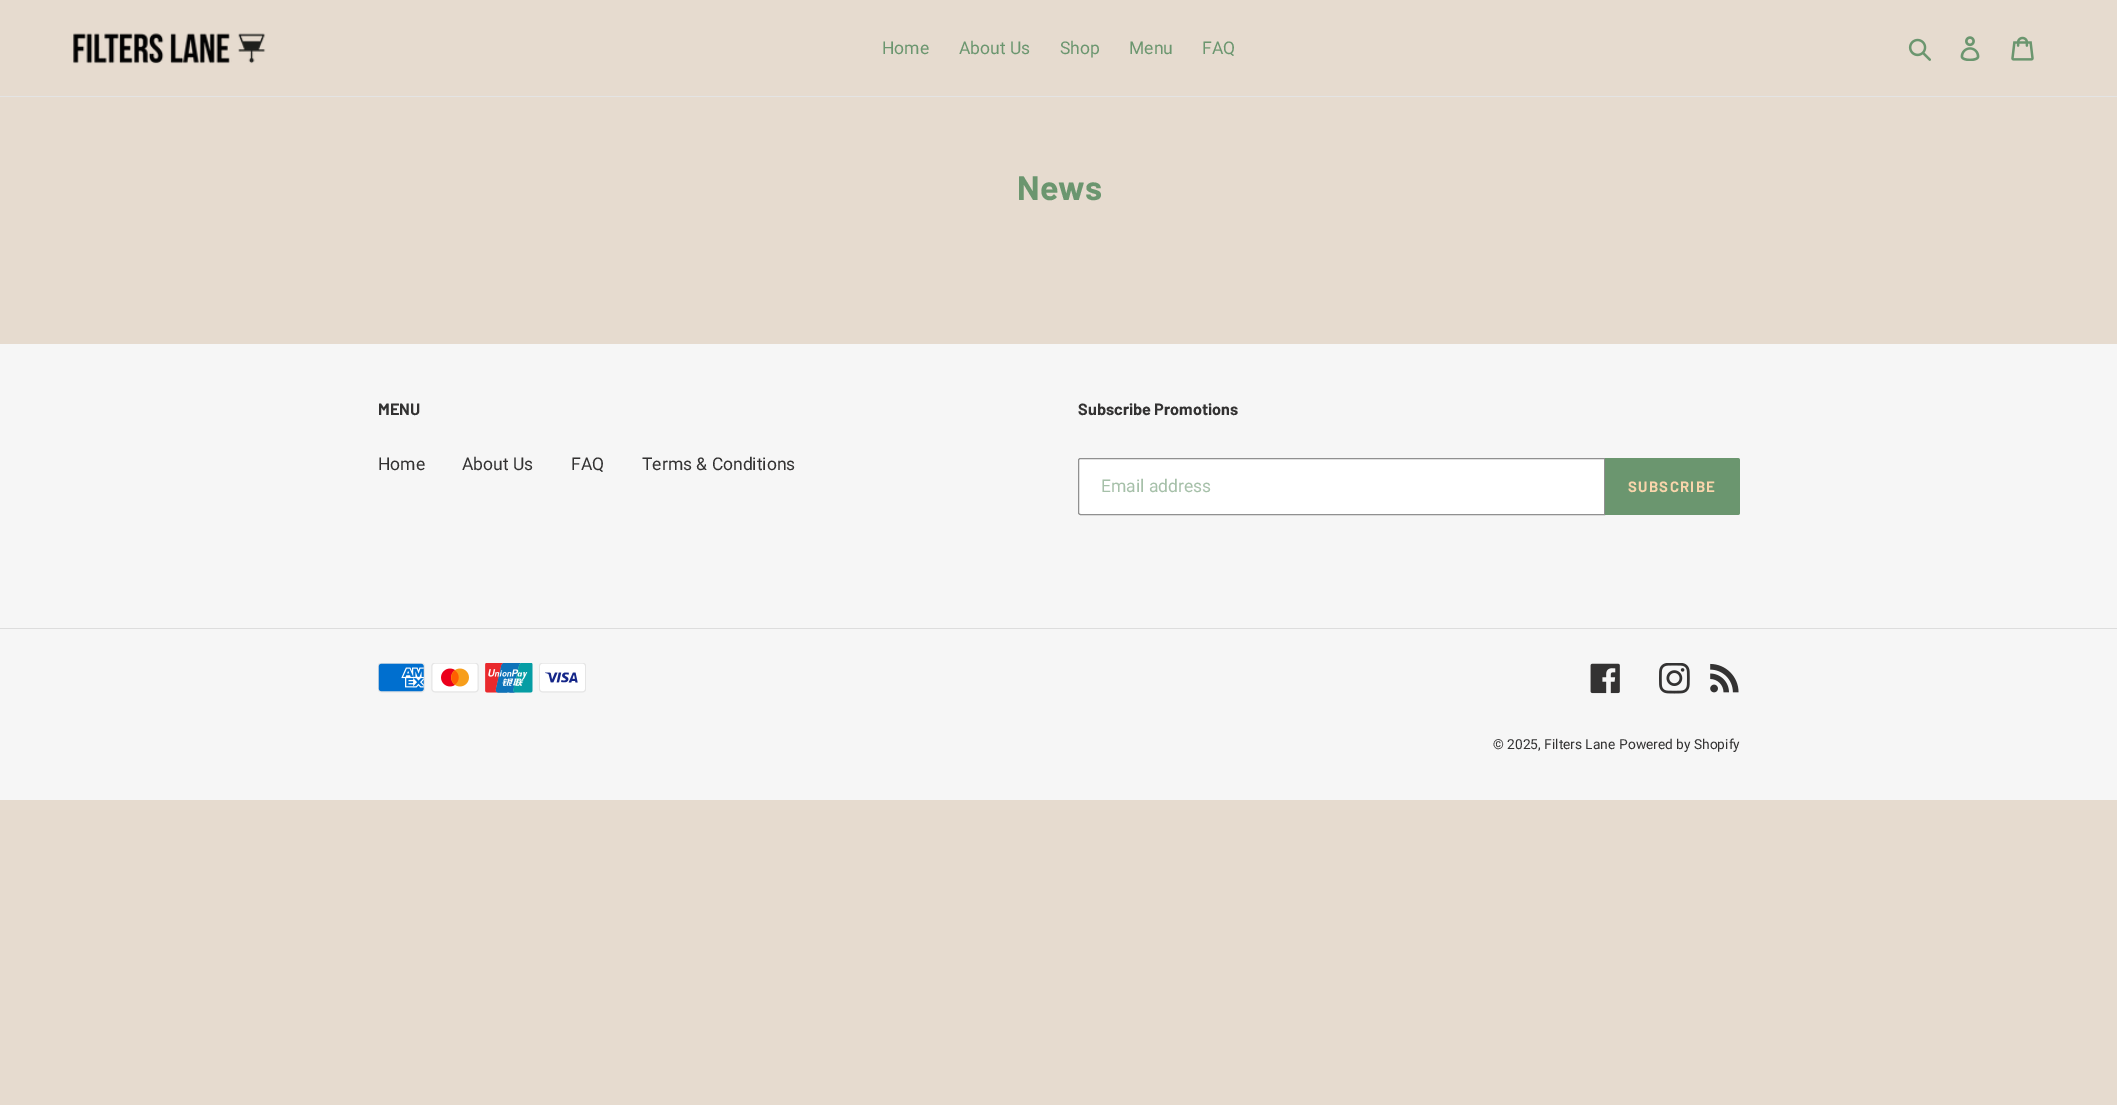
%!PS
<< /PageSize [2117 1105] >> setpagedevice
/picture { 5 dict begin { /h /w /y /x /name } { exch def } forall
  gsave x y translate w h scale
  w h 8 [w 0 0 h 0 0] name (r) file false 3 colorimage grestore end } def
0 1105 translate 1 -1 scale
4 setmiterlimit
0.902 0.859 0.812 setrgbcolor
0 0 2117 1105 rectfill
0.894 setgray
0 96 2117 1 rectfill
(img1.rgb) 73 33 193 31 picture
/Roboto-Regular [17.5 0 0 -17.5 0 0] selectfont
0.42 0.588 0.435 setrgbcolor
882 54 moveto (Home) show
959 54 moveto (About Us) show
1060 54 moveto (Shop) show
1129 54 moveto (Menu) show
1202 54 moveto (FAQ) show
(img2.rgb) 1908 38 23 23 picture
(img3.rgb) 1960 36 20 25 picture
(img4.rgb) 2011 36 23 25 picture
/Barlow-Bold [34 0 0 -34 0 0] selectfont
1017 200 moveto (News) show
0.965 setgray
0 344 2117 456 rectfill
/Barlow-Bold [16.25 0 0 -16.25 0 0] selectfont
0.2 0.196 0.196 setrgbcolor
378 415 moveto (MENU) show
/Roboto-Regular [17.5 0 0 -17.5 0 0] selectfont
378 470 moveto (Home) show
462 470 moveto (About Us) show
571 470 moveto (FAQ) show
642 470 moveto (Terms & Conditions) show
/Barlow-Bold [16.25 0 0 -16.25 0 0] selectfont
1078 415 moveto (Subscribe Promotions) show
1 setgray
newpath 1080.5 458.5 moveto 1604.5 458.5 lineto 1604.5 514.5 lineto 1080.5 514.5 lineto 1079.5 514.5 1078.5 513.5 1078.5 512.5 curveto 1078.5 460.5 lineto 1078.5 459.5 1079.5 458.5 1080.5 458.5 curveto closepath gsave fill grestore
0.565 setgray
stroke
/Roboto-Regular [17.5 0 0 -17.5 0 0] selectfont
0.651 0.753 0.663 setrgbcolor
1101 492 moveto (Email address) show
0.42 0.588 0.435 setrgbcolor
newpath 1605 458 moveto 1737.5 458 lineto 1739 458 1740 459 1740 460.5 curveto 1740 512.5 lineto 1740 514 1739 515 1737.5 515 curveto 1605 515 lineto closepath fill
/Barlow-Bold [15 0 0 -15 0 0] selectfont
0.976 0.835 0.671 setrgbcolor
1628 492 moveto 1.25 0 (SUBSCRIBE) ashow
0.867 setgray
0 628 2117 1 rectfill
(img5.rgb) 378 663 47 30 picture
(img6.rgb) 431 663 48 30 picture
(img7.rgb) 485 663 48 30 picture
(img8.rgb) 539 663 47 30 picture
(img9.rgb) 1590 663 30 31 picture
(img10.rgb) 1659 663 31 31 picture
(img11.rgb) 1710 663 29 30 picture
/Roboto-Regular [13.75 0 0 -13.75 0 0] selectfont
0.2 0.196 0.196 setrgbcolor
1493 749 moveto (© 2025, Filters Lane) show
1619 749 moveto (Powered by Shopify) show
showpage
